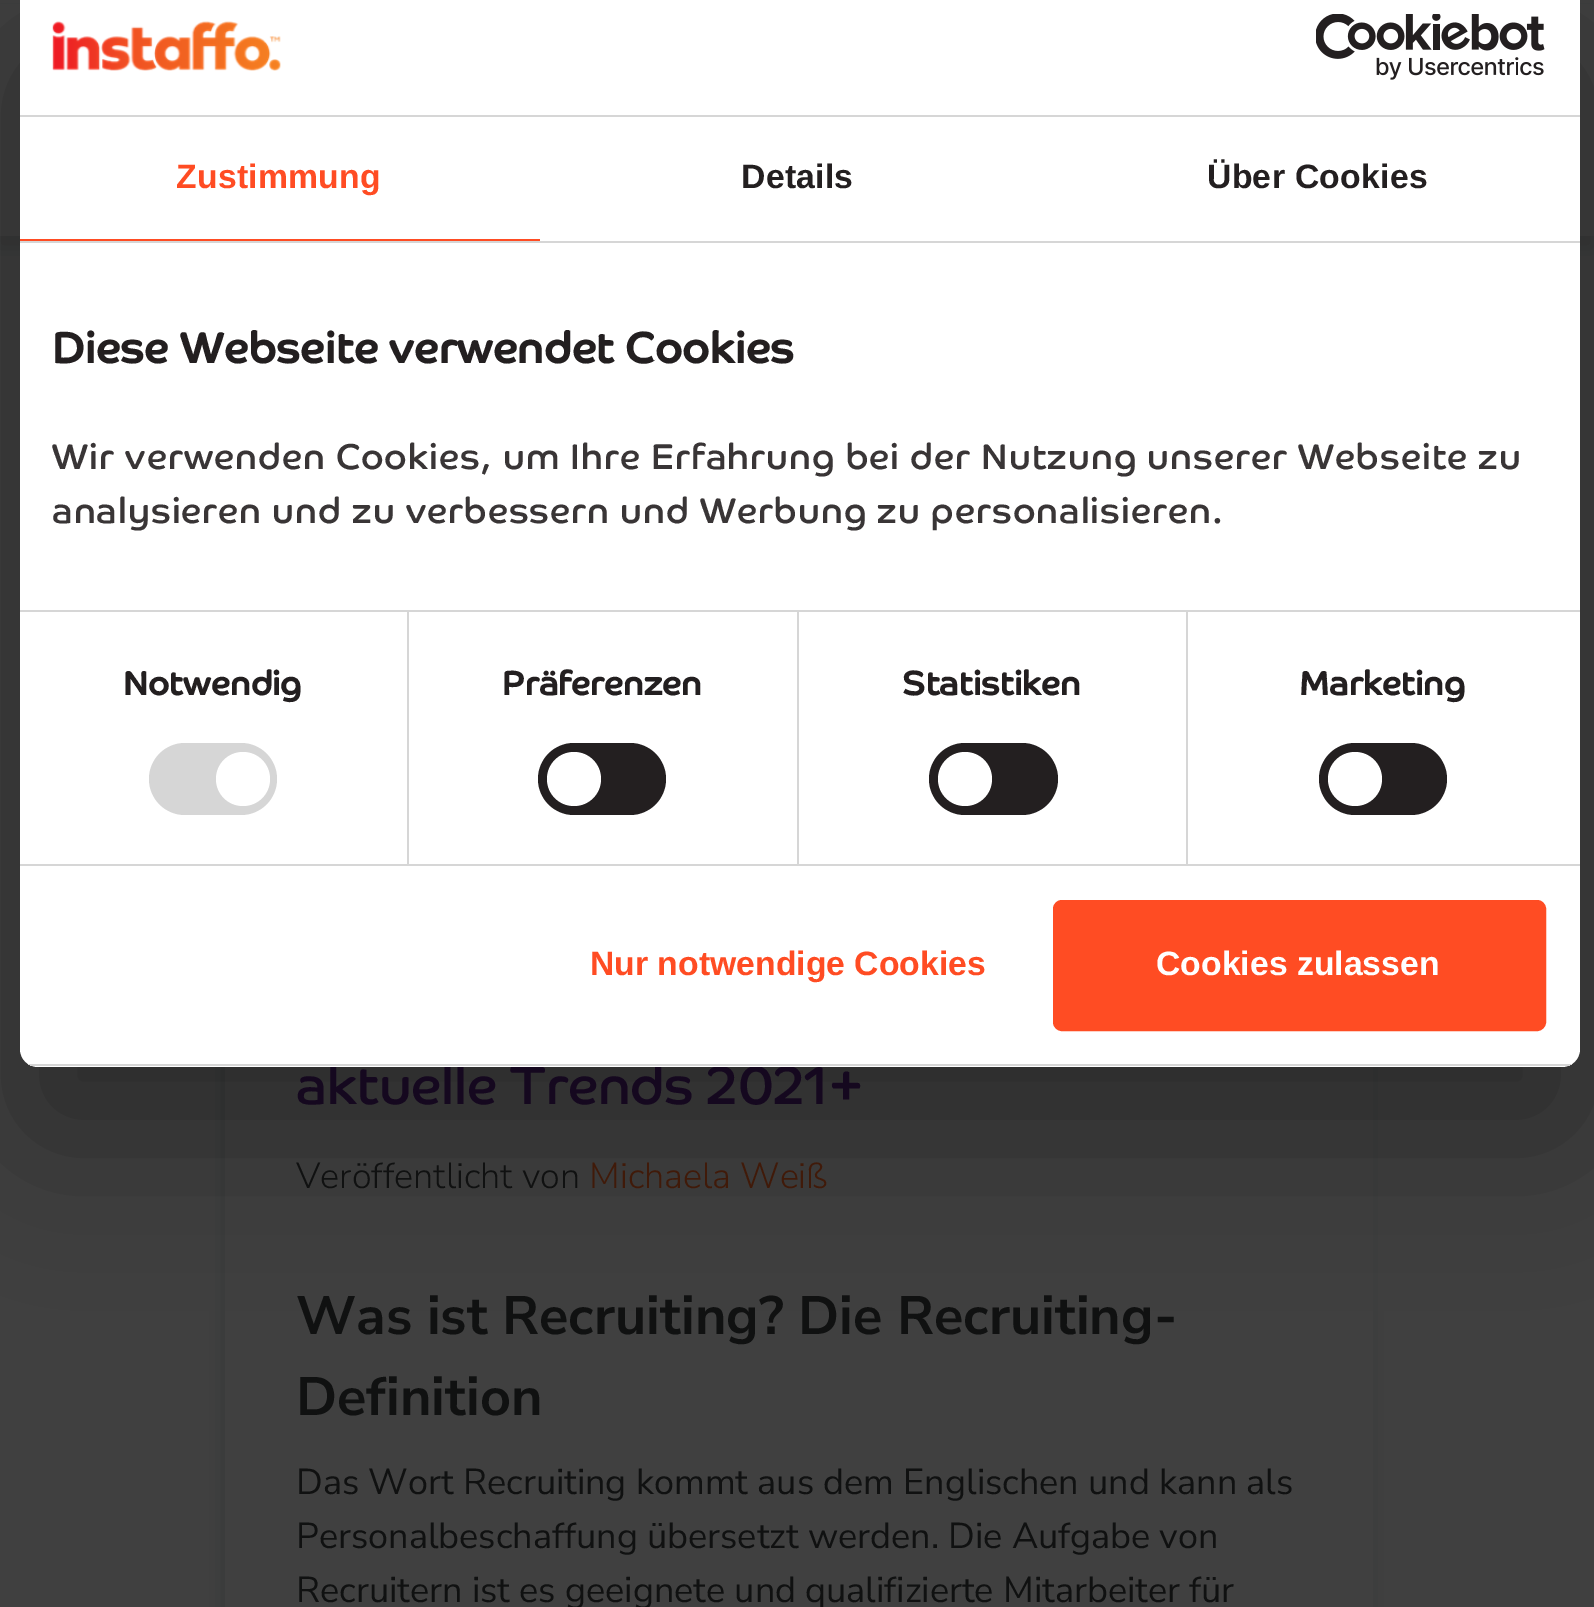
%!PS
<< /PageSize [1594 1607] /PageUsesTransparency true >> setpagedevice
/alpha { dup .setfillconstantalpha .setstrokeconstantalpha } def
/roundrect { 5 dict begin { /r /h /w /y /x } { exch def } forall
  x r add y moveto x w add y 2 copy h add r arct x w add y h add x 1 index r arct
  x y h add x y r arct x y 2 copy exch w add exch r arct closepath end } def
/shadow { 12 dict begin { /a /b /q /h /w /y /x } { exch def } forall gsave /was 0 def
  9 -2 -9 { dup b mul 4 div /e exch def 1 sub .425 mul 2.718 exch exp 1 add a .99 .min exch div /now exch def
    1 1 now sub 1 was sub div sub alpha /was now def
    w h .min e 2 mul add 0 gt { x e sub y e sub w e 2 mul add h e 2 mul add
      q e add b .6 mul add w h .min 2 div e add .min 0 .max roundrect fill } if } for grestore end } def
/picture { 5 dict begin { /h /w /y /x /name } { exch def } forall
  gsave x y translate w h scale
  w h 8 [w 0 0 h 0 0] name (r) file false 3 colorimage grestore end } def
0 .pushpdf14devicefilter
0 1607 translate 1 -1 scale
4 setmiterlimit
0.251 setgray
0 0 1594 1607 rectfill
0.212 0.216 0.216 setrgbcolor
-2 11 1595 237 0 11 1 shadow
223 153 1147 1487 0 11 1 shadow
0.251 setgray
0 4 1594 232 rectfill
225 1067 1148 540 rectfill
0 setgray
20 52 1560 1087 18 76.5 0.3 shadow
/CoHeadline-Regular [54 0 0 -54 0 0] selectfont
0.082 0.031 0.122 setrgbcolor
296 1104 moveto (aktuelle Trends 2021+) show
1 setgray
20 -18 1560 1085 18 roundrect fill
0.839 setgray
20 115 1560 2 rectfill
(img1.rgb) 52 21 229 50 picture
(img2.rgb) 1316 14 229 66 picture
20 241 1560 2 rectfill
1 0.298 0.137 setrgbcolor
20 239 520 2 rectfill
/LiberationSans-Bold [33.75 0 0 -33.75 0 0] selectfont
176 188 moveto 0.25 0 (Zustimmung) ashow
0.137 0.122 0.125 setrgbcolor
741 188 moveto 0.25 0 (Details) ashow
1207 188 moveto 0.25 0 (Über Cookies) ashow
0.839 setgray
20 610 1560 2 rectfill
/CoHeadline-Bold [43.25 0 0 -43.25 0 0] selectfont
0.137 0.122 0.125 setrgbcolor
52 363 moveto 0.55 0 (Diese Webseite verwendet Cookies) ashow
/CoHeadline-Regular [36 0 0 -36 0 0] selectfont
0.224 0.208 0.212 setrgbcolor
52 469 moveto 1.12 0 (Wir verwenden Cookies, um Ihre Erfahrung bei der Nutzung unserer Webseite zu) ashow
52 523 moveto 1.12 0 (analysieren und zu verbessern und Werbung zu personalisieren.) ashow
0.839 setgray
20 864 1560 2 rectfill
407 612 2 252 rectfill
/CoHeadline-Bold [33.75 0 0 -33.75 0 0] selectfont
0.137 0.122 0.125 setrgbcolor
123 695 moveto 0.25 0 (Notwendig) ashow
0.839 setgray
149 743 128 72 36 roundrect fill
1 setgray
newpath 243 779 27 0 360 arc closepath fill
0.839 setgray
797 612 2 252 rectfill
0.137 0.122 0.125 setrgbcolor
502 695 moveto 0.25 0 (Präferenzen) ashow
538 743 128 72 36 roundrect fill
1 setgray
newpath 574 779 27 0 360 arc closepath fill
0.839 setgray
1186 612 2 252 rectfill
0.137 0.122 0.125 setrgbcolor
902 695 moveto 0.25 0 (Statistiken) ashow
929 743 129 72 36 roundrect fill
1 setgray
newpath 965 779 27 0 360 arc closepath fill
0.137 0.122 0.125 setrgbcolor
1299 695 moveto 0.25 0 (Marketing) ashow
1319 743 128 72 36 roundrect fill
1 setgray
newpath 1355 779 27 0 360 arc closepath fill
gsave
20 -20 1560 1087 18 roundrect clip newpath
0.839 setgray
20 1064 1560 2 rectfill
grestore
/LiberationSans-Bold [33.75 0 0 -33.75 0 0] selectfont
1 0.298 0.137 setrgbcolor
590 975 moveto (Nur notwendige Cookies) show
1055.5 902.5 488 126 6.5 roundrect gsave fill grestore
5 setlinewidth
stroke
1 setgray
1156 975 moveto (Cookies zulassen) show
/NunitoSans-Light [36 0 0 -36 0 0] selectfont
0.063 0.067 0.067 setrgbcolor
296 1188 moveto (Veröffentlicht von) show
0.251 0.102 0.035 setrgbcolor
589 1188 moveto (Michaela Weiß) show
/NunitoSans-Bold [54 0 0 -54 0 0] selectfont
0.063 0.067 0.067 setrgbcolor
296 1334 moveto (Was ist Recruiting? Die Recruiting-) show
296 1415 moveto (Definition) show
/NunitoSans-Regular [36 0 0 -36 0 0] selectfont
296 1494 moveto (Das Wort Recruiting kommt aus dem Englischen und kann als) show
296 1548 moveto (Personalbeschaffung übersetzt werden. Die Aufgabe von) show
296 1602 moveto (Recruitern ist es geeignete und qualifizierte Mitarbeiter für) show
.poppdf14devicefilter showpage
